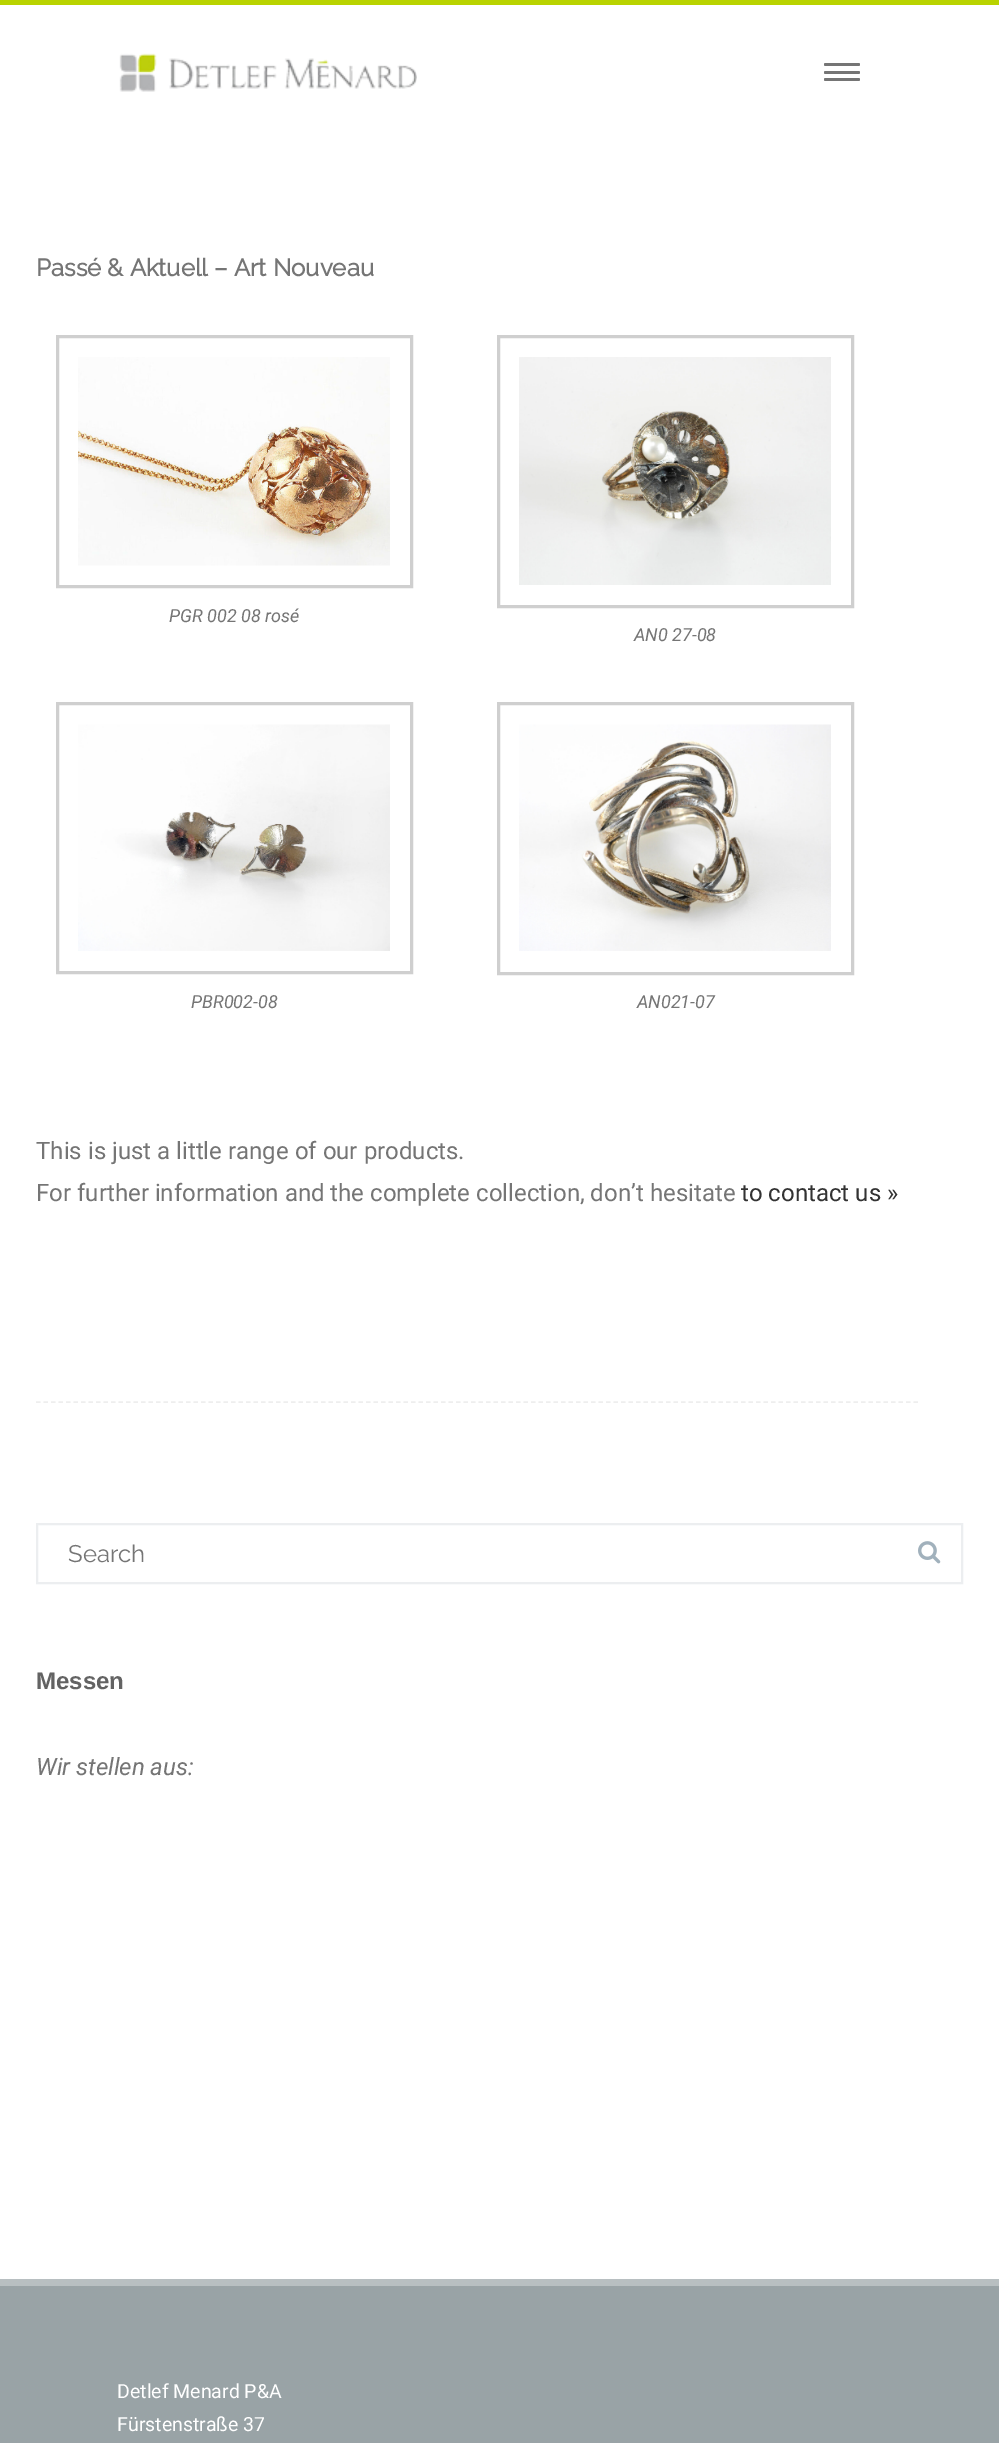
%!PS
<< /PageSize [999 2443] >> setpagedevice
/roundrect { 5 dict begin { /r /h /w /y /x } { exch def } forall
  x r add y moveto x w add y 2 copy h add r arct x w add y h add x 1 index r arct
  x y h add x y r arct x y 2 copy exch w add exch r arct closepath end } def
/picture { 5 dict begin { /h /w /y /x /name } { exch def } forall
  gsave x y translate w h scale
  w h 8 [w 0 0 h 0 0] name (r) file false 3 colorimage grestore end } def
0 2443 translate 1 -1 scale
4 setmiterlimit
1 setgray
0 0 999 2443 rectfill
0.725 0.827 0 setrgbcolor
0 0 999 5 rectfill
(img1.rgb) 119 53 298 39 picture
0.459 setgray
824 63 36 3 1.5 roundrect fill
824 71 36 3 1.5 roundrect fill
824 78 36 3 1.5 roundrect fill
/Raleway-Bold [24 0 0 -24 0 0] selectfont
36 276 moveto (Passé & Aktuell – Art Nouveau) show
0.812 setgray
3 setlinewidth
57.5 336.5 354 250 rectstroke
(img2.rgb) 78 357 312 209 picture
/Roboto-Italic [18 0 0 -18 0 0] selectfont
0.459 setgray
169 622 moveto (PGR 002 08 rosé) show
0.812 setgray
498.5 336.5 354 270 rectstroke
(img3.rgb) 519 357 312 228 picture
0.459 setgray
634 641 moveto (AN0 27-08) show
0.812 setgray
57.5 703.5 354 269 rectstroke
(img4.rgb) 78 724 312 227 picture
0.459 setgray
191 1008 moveto (PBR002-08) show
0.812 setgray
498.5 703.5 354 270 rectstroke
(img5.rgb) 519 724 312 227 picture
0.459 setgray
637 1008 moveto (AN021-07) show
/Roboto-Regular [24 0 0 -24 0 0] selectfont
36 1159 moveto (This is just a little range of our products.) show
36 1201 moveto (For further information and the complete collection, don’t hesitate) show
0.2 setgray
741 1201 moveto (to contact us ») show
0.933 setgray
1.5 setlinewidth
[4.5 3] 0 setdash
newpath 36 1402 moveto 918 1402 lineto stroke
0.925 0.933 0.941 setrgbcolor
2 setlinewidth
[] 0 setdash
37 1524 925 59 rectstroke
/Raleway-Regular [24 0 0 -24 0 0] selectfont
0.459 setgray
68 1562 moveto (Search) show
(img6.rgb) 918 1541 23 23 picture
/LiberationSans-Bold [24 0 0 -24 0 0] selectfont
0.388 setgray
36 1689 moveto (Messen) show
/Roboto-Italic [24 0 0 -24 0 0] selectfont
0.459 setgray
36 1775 moveto (Wir stellen aus:) show
0.6 0.639 0.651 setrgbcolor
0 2286 999 157 rectfill
0.722 0.749 0.757 setrgbcolor
0 2279 999 7 rectfill
/Roboto-Regular [19.5 0 0 -19.5 0 0] selectfont
1 setgray
117 2398 moveto (Detlef Menard P&A) show
117 2431 moveto (Fürstenstraße 37) show
showpage
